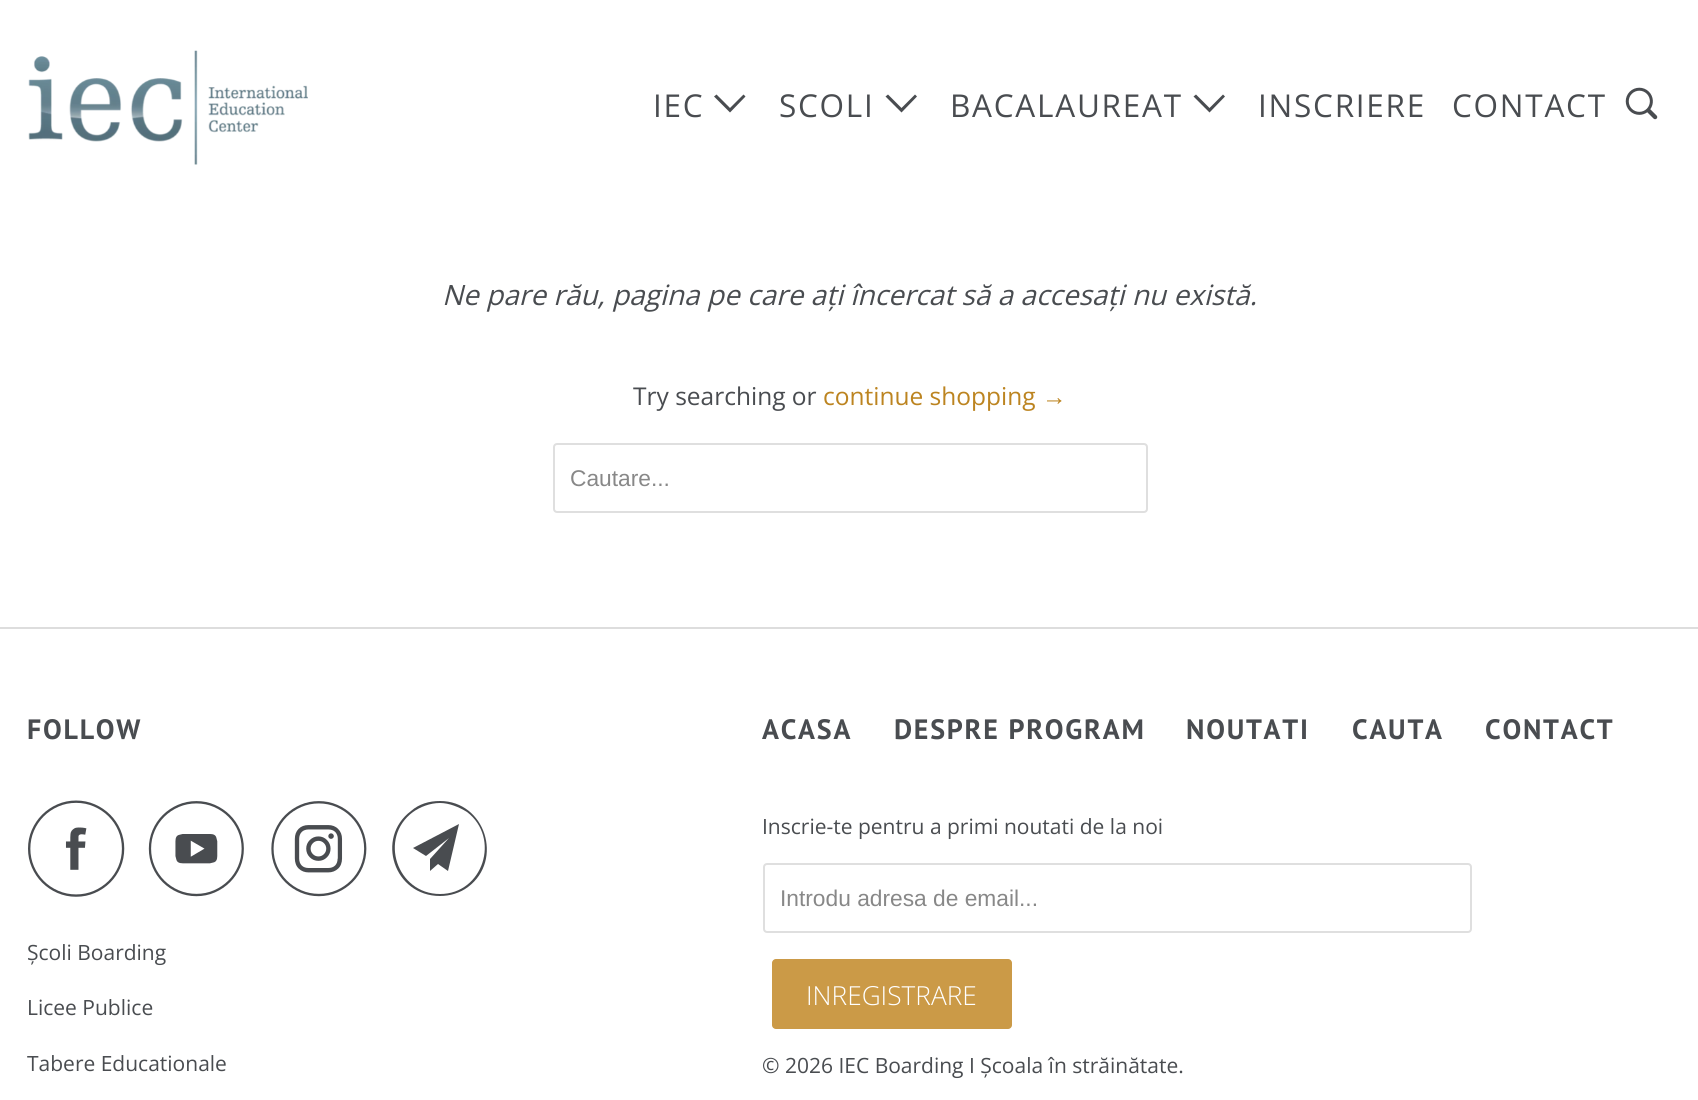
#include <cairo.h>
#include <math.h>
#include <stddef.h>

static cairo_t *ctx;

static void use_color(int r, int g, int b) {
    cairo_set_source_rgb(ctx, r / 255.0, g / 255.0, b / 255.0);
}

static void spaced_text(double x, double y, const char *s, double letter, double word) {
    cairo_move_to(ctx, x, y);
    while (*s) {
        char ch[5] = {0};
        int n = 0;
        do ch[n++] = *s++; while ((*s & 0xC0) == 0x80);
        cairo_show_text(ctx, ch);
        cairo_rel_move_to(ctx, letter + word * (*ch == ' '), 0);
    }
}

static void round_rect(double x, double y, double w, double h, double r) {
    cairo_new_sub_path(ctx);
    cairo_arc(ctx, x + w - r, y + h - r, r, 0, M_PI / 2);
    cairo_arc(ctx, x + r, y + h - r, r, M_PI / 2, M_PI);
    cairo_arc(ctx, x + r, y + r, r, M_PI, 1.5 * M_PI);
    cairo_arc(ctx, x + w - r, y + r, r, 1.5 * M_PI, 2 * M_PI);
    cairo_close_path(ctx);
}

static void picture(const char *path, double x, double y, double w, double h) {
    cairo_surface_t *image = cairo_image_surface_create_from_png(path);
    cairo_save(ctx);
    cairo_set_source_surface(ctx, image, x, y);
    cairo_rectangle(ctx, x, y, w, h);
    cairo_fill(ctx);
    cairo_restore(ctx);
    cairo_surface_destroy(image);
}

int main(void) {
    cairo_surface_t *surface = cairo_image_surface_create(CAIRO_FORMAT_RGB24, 1698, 1100);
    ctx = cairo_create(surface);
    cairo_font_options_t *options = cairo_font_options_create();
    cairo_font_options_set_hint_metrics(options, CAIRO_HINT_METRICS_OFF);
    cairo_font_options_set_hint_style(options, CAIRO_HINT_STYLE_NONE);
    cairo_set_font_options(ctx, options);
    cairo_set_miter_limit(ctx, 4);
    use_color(255, 255, 255);
    cairo_paint(ctx);
    picture("img1.png", 28, 50, 280, 115);
    cairo_select_font_face(ctx, "Open Sans", CAIRO_FONT_SLANT_NORMAL, CAIRO_FONT_WEIGHT_NORMAL);
    cairo_set_font_size(ctx, 31.5);
    use_color(73, 76, 80);
    spaced_text(653, 117, "IEC", 1.75, 0);
    cairo_new_path(ctx);
    cairo_move_to(ctx, 722, 104.5);
    cairo_line_to(ctx, 714, 96.5);
    cairo_line_to(ctx, 716.5, 94.5);
    cairo_line_to(ctx, 730, 108);
    cairo_line_to(ctx, 743.5, 94.5);
    cairo_line_to(ctx, 745.5, 96.5);
    cairo_line_to(ctx, 730, 112.5);
    cairo_close_path(ctx);
    cairo_fill(ctx);
    spaced_text(779, 117, "SCOLI", 1.75, 0);
    cairo_new_path(ctx);
    cairo_move_to(ctx, 893.5, 104.5);
    cairo_line_to(ctx, 885.5, 96.5);
    cairo_line_to(ctx, 888, 94.5);
    cairo_line_to(ctx, 901.5, 108);
    cairo_line_to(ctx, 915, 94.5);
    cairo_line_to(ctx, 917, 96.5);
    cairo_line_to(ctx, 901.5, 112.5);
    cairo_close_path(ctx);
    cairo_fill(ctx);
    spaced_text(950, 117, "BACALAUREAT", 1.75, 0);
    cairo_new_path(ctx);
    cairo_move_to(ctx, 1201.5, 104.5);
    cairo_line_to(ctx, 1193.5, 96.5);
    cairo_line_to(ctx, 1196, 94.5);
    cairo_line_to(ctx, 1209.5, 108);
    cairo_line_to(ctx, 1223, 94.5);
    cairo_line_to(ctx, 1225, 96.5);
    cairo_line_to(ctx, 1209.5, 112.5);
    cairo_close_path(ctx);
    cairo_fill(ctx);
    spaced_text(1258, 117, "INSCRIERE", 1.75, 0);
    spaced_text(1452, 117, "CONTACT", 1.75, 0);
    picture("img2.png", 1625, 87, 33, 33);
    cairo_select_font_face(ctx, "Open Sans", CAIRO_FONT_SLANT_ITALIC, CAIRO_FONT_WEIGHT_NORMAL);
    cairo_set_font_size(ctx, 28);
    cairo_move_to(ctx, 442, 305);
    cairo_show_text(ctx, "Ne pare rău, pagina pe care ați încercat să a accesați nu există.");
    cairo_select_font_face(ctx, "Open Sans", CAIRO_FONT_SLANT_NORMAL, CAIRO_FONT_WEIGHT_NORMAL);
    cairo_set_font_size(ctx, 24.5);
    cairo_move_to(ctx, 633, 405);
    cairo_show_text(ctx, "Try searching or");
    use_color(188, 132, 32);
    cairo_move_to(ctx, 823, 405);
    cairo_show_text(ctx, "continue shopping");
    cairo_select_font_face(ctx, "Liberation Serif", CAIRO_FONT_SLANT_NORMAL, CAIRO_FONT_WEIGHT_NORMAL);
    cairo_move_to(ctx, 1042, 405);
    cairo_show_text(ctx, "→");
    round_rect(554, 444, 593, 68, 3);
    use_color(223, 223, 223);
    cairo_stroke(ctx);
    cairo_save(ctx);
    cairo_rectangle(ctx, 571, 466, 560, 26);
    cairo_clip(ctx);
    cairo_select_font_face(ctx, "Liberation Sans", CAIRO_FONT_SLANT_NORMAL, CAIRO_FONT_WEIGHT_NORMAL);
    cairo_set_font_size(ctx, 22.75);
    use_color(136, 136, 136);
    cairo_move_to(ctx, 570, 486);
    cairo_show_text(ctx, "Cautare...");
    cairo_restore(ctx);
    use_color(221, 221, 221);
    cairo_rectangle(ctx, 0, 627, 1698, 2);
    cairo_fill(ctx);
    cairo_select_font_face(ctx, "PT Sans", CAIRO_FONT_SLANT_NORMAL, CAIRO_FONT_WEIGHT_BOLD);
    cairo_set_font_size(ctx, 28);
    use_color(73, 76, 80);
    spaced_text(27, 739, "FOLLOW", 1.75, 0);
    picture("img3.png", 28, 800, 97, 97);
    picture("img4.png", 148, 801, 96, 96);
    picture("img5.png", 271, 801, 96, 96);
    cairo_new_path(ctx);
    cairo_move_to(ctx, 448, 871);
    cairo_line_to(ctx, 438, 864);
    cairo_line_to(ctx, 430, 871);
    cairo_line_to(ctx, 430, 859);
    cairo_line_to(ctx, 449, 838);
    cairo_line_to(ctx, 426, 856);
    cairo_line_to(ctx, 413, 848);
    cairo_line_to(ctx, 459, 824);
    cairo_close_path(ctx);
    cairo_move_to(ctx, 440, 803);
    cairo_curve_to(ctx, 430, 803, 420, 807, 413, 812);
    cairo_curve_to(ctx, 378, 838, 397, 894, 440, 894);
    cairo_curve_to(ctx, 483, 894, 501, 838, 467, 812);
    cairo_curve_to(ctx, 459, 807, 449, 803, 440, 803);
    cairo_close_path(ctx);
    cairo_move_to(ctx, 440, 896);
    cairo_curve_to(ctx, 394, 896, 375, 838, 411, 811);
    cairo_curve_to(ctx, 419, 804, 429, 801, 440, 801);
    cairo_curve_to(ctx, 485, 801, 504, 860, 468, 887);
    cairo_curve_to(ctx, 460, 893, 450, 896, 440, 896);
    cairo_close_path(ctx);
    cairo_fill(ctx);
    cairo_select_font_face(ctx, "Open Sans", CAIRO_FONT_SLANT_NORMAL, CAIRO_FONT_WEIGHT_NORMAL);
    cairo_set_font_size(ctx, 21);
    cairo_move_to(ctx, 27, 960);
    cairo_show_text(ctx, "Școli Boarding");
    cairo_move_to(ctx, 27, 1015);
    cairo_show_text(ctx, "Licee Publice");
    cairo_move_to(ctx, 27, 1071);
    cairo_show_text(ctx, "Tabere Educationale");
    cairo_select_font_face(ctx, "PT Sans", CAIRO_FONT_SLANT_NORMAL, CAIRO_FONT_WEIGHT_BOLD);
    cairo_set_font_size(ctx, 28);
    spaced_text(762, 739, "ACASA", 1.75, 0);
    spaced_text(894, 739, "DESPRE PROGRAM", 1.75, 0);
    spaced_text(1186, 739, "NOUTATI", 1.75, 0);
    spaced_text(1352, 739, "CAUTA", 1.75, 0);
    spaced_text(1485, 739, "CONTACT", 1.75, 0);
    cairo_select_font_face(ctx, "Open Sans", CAIRO_FONT_SLANT_NORMAL, CAIRO_FONT_WEIGHT_NORMAL);
    cairo_set_font_size(ctx, 21);
    cairo_move_to(ctx, 762, 834);
    cairo_show_text(ctx, "Inscrie-te pentru a primi noutati de la noi");
    round_rect(764, 864, 707, 68, 3);
    use_color(223, 223, 223);
    cairo_stroke(ctx);
    cairo_select_font_face(ctx, "Liberation Sans", CAIRO_FONT_SLANT_NORMAL, CAIRO_FONT_WEIGHT_NORMAL);
    cairo_set_font_size(ctx, 22.75);
    use_color(136, 136, 136);
    cairo_move_to(ctx, 780, 906);
    cairo_show_text(ctx, "Introdu adresa de email...");
    use_color(203, 154, 71);
    round_rect(772, 959, 240, 70, 4);
    cairo_fill(ctx);
    cairo_select_font_face(ctx, "Open Sans Light", CAIRO_FONT_SLANT_NORMAL, CAIRO_FONT_WEIGHT_NORMAL);
    cairo_set_font_size(ctx, 26.25);
    use_color(255, 255, 255);
    cairo_move_to(ctx, 806, 1005);
    cairo_show_text(ctx, "INREGISTRARE");
    cairo_select_font_face(ctx, "Open Sans", CAIRO_FONT_SLANT_NORMAL, CAIRO_FONT_WEIGHT_NORMAL);
    cairo_set_font_size(ctx, 21);
    use_color(73, 76, 80);
    cairo_move_to(ctx, 762, 1073);
    cairo_show_text(ctx, "© 2026 IEC Boarding I Școala în străinătate.");
    cairo_surface_write_to_png(surface, "result.png");
    cairo_font_options_destroy(options);
    cairo_destroy(ctx);
    cairo_surface_destroy(surface);
    return 0;
}
